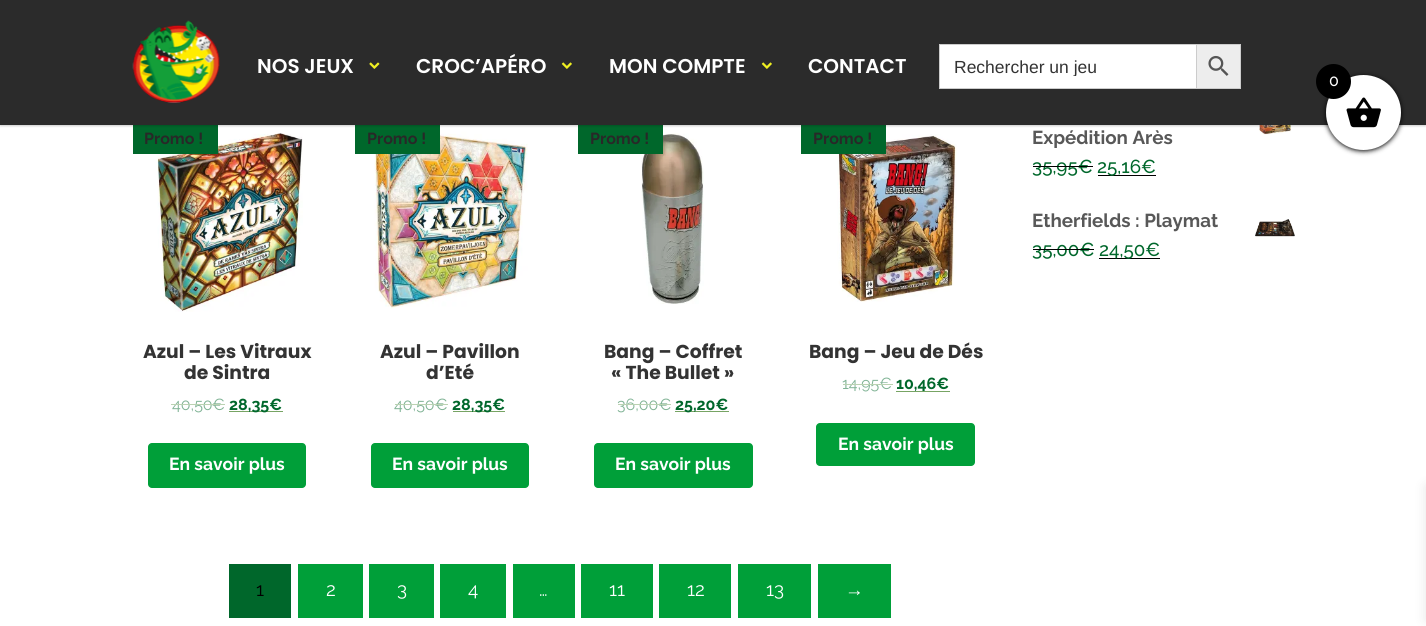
#include <cairo.h>
#include <math.h>
#include <stddef.h>

static cairo_t *ctx;

static void use_color(int r, int g, int b) {
    cairo_set_source_rgb(ctx, r / 255.0, g / 255.0, b / 255.0);
}

static void round_rect(double x, double y, double w, double h, double r) {
    cairo_new_sub_path(ctx);
    cairo_arc(ctx, x + w - r, y + h - r, r, 0, M_PI / 2);
    cairo_arc(ctx, x + r, y + h - r, r, M_PI / 2, M_PI);
    cairo_arc(ctx, x + r, y + r, r, M_PI, 1.5 * M_PI);
    cairo_arc(ctx, x + w - r, y + r, r, 1.5 * M_PI, 2 * M_PI);
    cairo_close_path(ctx);
}

static void shadow(double x, double y, double w, double h, double r, double blur, double alpha) {
    cairo_push_group_with_content(ctx, CAIRO_CONTENT_ALPHA);
    cairo_set_operator(ctx, CAIRO_OPERATOR_SOURCE);
    for (int i = 15; i >= -15 && fmin(w, h) + blur * i / 3 > 0; i -= 2) {
        double e = blur * i / 6;
        cairo_set_source_rgba(ctx, 0, 0, 0, alpha * erfc((i - 1) / 8.5) / 2);
        round_rect(x - e, y - e, w + 2 * e, h + 2 * e, fmax(0, fmin(r + e + blur * .6, fmin(w, h) / 2 + e)));
        cairo_fill(ctx);
    }
    cairo_pattern_t *soft = cairo_pop_group(ctx);
    cairo_mask(ctx, soft);
    cairo_pattern_destroy(soft);
}

static void picture(const char *path, double x, double y, double w, double h) {
    cairo_surface_t *image = cairo_image_surface_create_from_png(path);
    cairo_save(ctx);
    cairo_set_source_surface(ctx, image, x, y);
    cairo_rectangle(ctx, x, y, w, h);
    cairo_fill(ctx);
    cairo_restore(ctx);
    cairo_surface_destroy(image);
}

int main(void) {
    cairo_surface_t *surface = cairo_image_surface_create(CAIRO_FORMAT_RGB24, 1426, 626);
    ctx = cairo_create(surface);
    cairo_font_options_t *options = cairo_font_options_create();
    cairo_font_options_set_hint_metrics(options, CAIRO_HINT_METRICS_OFF);
    cairo_font_options_set_hint_style(options, CAIRO_HINT_STYLE_NONE);
    cairo_set_font_options(ctx, options);
    cairo_set_miter_limit(ctx, 4);
    use_color(255, 255, 255);
    cairo_paint(ctx);
    picture("img6.png", 157, 133, 146, 179);
    use_color(0, 103, 43);
    cairo_rectangle(ctx, 133, 125, 85, 29);
    cairo_fill(ctx);
    picture("img7.png", 374, 128, 154, 181);
    cairo_rectangle(ctx, 355, 125, 85, 29);
    cairo_fill(ctx);
    picture("img8.png", 641, 133, 63, 171);
    cairo_rectangle(ctx, 578, 125, 85, 29);
    cairo_fill(ctx);
    picture("img9.png", 837, 134, 120, 168);
    cairo_rectangle(ctx, 801, 125, 85, 29);
    cairo_fill(ctx);
    picture("img10.png", 1259, 125, 32, 10);
    use_color(0, 0, 0);
    shadow(0, 1, 1426, 125, 0, 1, 0.2);
    use_color(43, 43, 43);
    cairo_rectangle(ctx, 0, 0, 1426, 125);
    cairo_fill(ctx);
    picture("img1.png", 132, 20, 88, 83);
    cairo_select_font_face(ctx, "Poppins SemiBold", CAIRO_FONT_SLANT_NORMAL, CAIRO_FONT_WEIGHT_NORMAL);
    cairo_set_font_size(ctx, 20);
    use_color(255, 255, 255);
    cairo_move_to(ctx, 257, 73);
    cairo_show_text(ctx, "NOS JEUX");
    picture("img2.png", 369, 62, 11, 7);
    cairo_move_to(ctx, 416, 73);
    cairo_show_text(ctx, "CROC’APÉRO");
    picture("img3.png", 561, 62, 11, 7);
    cairo_move_to(ctx, 609, 73);
    cairo_show_text(ctx, "MON COMPTE");
    picture("img3.png", 761, 62, 11, 7);
    cairo_move_to(ctx, 808, 73);
    cairo_show_text(ctx, "CONTACT");
    cairo_rectangle(ctx, 940, 45, 256, 43);
    cairo_fill(ctx);
    use_color(204, 204, 204);
    cairo_rectangle(ctx, 939, 44, 257, 1);
    cairo_fill(ctx);
    cairo_rectangle(ctx, 939, 88, 257, 1);
    cairo_fill(ctx);
    cairo_rectangle(ctx, 939, 44, 1, 45);
    cairo_fill(ctx);
    cairo_save(ctx);
    cairo_rectangle(ctx, 955, 56, 226, 20);
    cairo_clip(ctx);
    cairo_select_font_face(ctx, "Liberation Sans", CAIRO_FONT_SLANT_NORMAL, CAIRO_FONT_WEIGHT_NORMAL);
    cairo_set_font_size(ctx, 17.5);
    use_color(51, 51, 51);
    cairo_move_to(ctx, 954, 73);
    cairo_show_text(ctx, "Rechercher un jeu");
    cairo_restore(ctx);
    use_color(237, 237, 237);
    cairo_rectangle(ctx, 1196.5, 44.5, 44, 44);
    cairo_fill_preserve(ctx);
    use_color(204, 204, 204);
    cairo_set_line_width(ctx, 1);
    cairo_stroke(ctx);
    picture("img4.png", 1208, 55, 21, 21);
    use_color(0, 0, 0);
    shadow(1326, 76, 75, 75, 37.5, 2.5, 1);
    use_color(255, 255, 255);
    cairo_arc(ctx, 1363.5, 112.5, 37.5, 0, 2 * M_PI);
    cairo_fill(ctx);
    picture("img5.png", 1346, 97, 35, 31);
    use_color(0, 0, 0);
    cairo_arc(ctx, 1333.5, 81.5, 17.5, 0, 2 * M_PI);
    cairo_fill(ctx);
    cairo_select_font_face(ctx, "Raleway Medium", CAIRO_FONT_SLANT_NORMAL, CAIRO_FONT_WEIGHT_NORMAL);
    cairo_set_font_size(ctx, 16);
    use_color(255, 255, 255);
    cairo_move_to(ctx, 1329, 86);
    cairo_show_text(ctx, "0");
    use_color(0, 0, 0);
    shadow(1426, 486, 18, 134, 0, 6, 0.1);
    cairo_select_font_face(ctx, "Raleway", CAIRO_FONT_SLANT_NORMAL, CAIRO_FONT_WEIGHT_BOLD);
    use_color(40, 40, 40);
    cairo_move_to(ctx, 144, 144);
    cairo_show_text(ctx, "Promo !");
    cairo_select_font_face(ctx, "Poppins", CAIRO_FONT_SLANT_NORMAL, CAIRO_FONT_WEIGHT_BOLD);
    cairo_set_font_size(ctx, 18.75);
    use_color(51, 51, 51);
    cairo_move_to(ctx, 143, 358);
    cairo_show_text(ctx, "Azul – Les Vitraux");
    cairo_move_to(ctx, 184, 379);
    cairo_show_text(ctx, "de Sintra");
    cairo_select_font_face(ctx, "Raleway", CAIRO_FONT_SLANT_NORMAL, CAIRO_FONT_WEIGHT_NORMAL);
    cairo_set_font_size(ctx, 16);
    use_color(128, 179, 149);
    cairo_move_to(ctx, 172, 410);
    cairo_show_text(ctx, "40,50");
    use_color(187, 210, 178);
    cairo_rectangle(ctx, 171, 404, 42, 1);
    cairo_fill(ctx);
    use_color(128, 179, 149);
    cairo_move_to(ctx, 212, 410);
    cairo_show_text(ctx, "€");
    use_color(187, 210, 178);
    cairo_rectangle(ctx, 213, 404, 12, 1);
    cairo_fill(ctx);
    use_color(119, 164, 100);
    cairo_rectangle(ctx, 229, 411, 54, 1);
    cairo_fill(ctx);
    cairo_select_font_face(ctx, "Raleway", CAIRO_FONT_SLANT_NORMAL, CAIRO_FONT_WEIGHT_BOLD);
    use_color(0, 103, 43);
    cairo_move_to(ctx, 229, 410);
    cairo_show_text(ctx, "28,35€");
    use_color(0, 159, 57);
    round_rect(148, 443, 158, 45, 4);
    cairo_fill(ctx);
    cairo_set_font_size(ctx, 17.5);
    use_color(255, 255, 255);
    cairo_move_to(ctx, 169, 470);
    cairo_show_text(ctx, "En savoir plus");
    cairo_set_font_size(ctx, 16);
    use_color(40, 40, 40);
    cairo_move_to(ctx, 367, 144);
    cairo_show_text(ctx, "Promo !");
    cairo_select_font_face(ctx, "Poppins", CAIRO_FONT_SLANT_NORMAL, CAIRO_FONT_WEIGHT_BOLD);
    cairo_set_font_size(ctx, 18.75);
    use_color(51, 51, 51);
    cairo_move_to(ctx, 380, 358);
    cairo_show_text(ctx, "Azul – Pavillon");
    cairo_move_to(ctx, 426, 379);
    cairo_show_text(ctx, "d’Eté");
    cairo_select_font_face(ctx, "Raleway", CAIRO_FONT_SLANT_NORMAL, CAIRO_FONT_WEIGHT_NORMAL);
    cairo_set_font_size(ctx, 16);
    use_color(128, 179, 149);
    cairo_move_to(ctx, 394, 410);
    cairo_show_text(ctx, "40,50€");
    use_color(187, 210, 178);
    cairo_rectangle(ctx, 395, 404, 53, 1);
    cairo_fill(ctx);
    use_color(119, 164, 100);
    cairo_rectangle(ctx, 453, 411, 52, 1);
    cairo_fill(ctx);
    cairo_select_font_face(ctx, "Raleway", CAIRO_FONT_SLANT_NORMAL, CAIRO_FONT_WEIGHT_BOLD);
    use_color(0, 103, 43);
    cairo_move_to(ctx, 452, 410);
    cairo_show_text(ctx, "28,35€");
    use_color(0, 159, 57);
    round_rect(371, 443, 158, 45, 4);
    cairo_fill(ctx);
    cairo_set_font_size(ctx, 17.5);
    use_color(255, 255, 255);
    cairo_move_to(ctx, 392, 470);
    cairo_show_text(ctx, "En savoir plus");
    cairo_set_font_size(ctx, 16);
    use_color(40, 40, 40);
    cairo_move_to(ctx, 590, 144);
    cairo_show_text(ctx, "Promo !");
    cairo_select_font_face(ctx, "Poppins", CAIRO_FONT_SLANT_NORMAL, CAIRO_FONT_WEIGHT_BOLD);
    cairo_set_font_size(ctx, 18.75);
    use_color(51, 51, 51);
    cairo_move_to(ctx, 604, 358);
    cairo_show_text(ctx, "Bang – Coffret");
    cairo_move_to(ctx, 611, 379);
    cairo_show_text(ctx, "« The Bullet »");
    cairo_select_font_face(ctx, "Raleway", CAIRO_FONT_SLANT_NORMAL, CAIRO_FONT_WEIGHT_NORMAL);
    cairo_set_font_size(ctx, 16);
    use_color(128, 179, 149);
    cairo_move_to(ctx, 617, 410);
    cairo_show_text(ctx, "36,00€");
    use_color(187, 210, 178);
    cairo_rectangle(ctx, 618, 404, 53, 1);
    cairo_fill(ctx);
    use_color(119, 164, 100);
    cairo_rectangle(ctx, 675, 411, 54, 1);
    cairo_fill(ctx);
    cairo_select_font_face(ctx, "Raleway", CAIRO_FONT_SLANT_NORMAL, CAIRO_FONT_WEIGHT_BOLD);
    use_color(0, 103, 43);
    cairo_move_to(ctx, 675, 410);
    cairo_show_text(ctx, "25,20€");
    use_color(0, 159, 57);
    round_rect(594, 443, 159, 45, 4);
    cairo_fill(ctx);
    cairo_set_font_size(ctx, 17.5);
    use_color(255, 255, 255);
    cairo_move_to(ctx, 615, 470);
    cairo_show_text(ctx, "En savoir plus");
    cairo_set_font_size(ctx, 16);
    use_color(40, 40, 40);
    cairo_move_to(ctx, 813, 144);
    cairo_show_text(ctx, "Promo !");
    cairo_select_font_face(ctx, "Poppins", CAIRO_FONT_SLANT_NORMAL, CAIRO_FONT_WEIGHT_BOLD);
    cairo_set_font_size(ctx, 18.75);
    use_color(51, 51, 51);
    cairo_move_to(ctx, 809, 358);
    cairo_show_text(ctx, "Bang – Jeu de Dés");
    cairo_select_font_face(ctx, "Raleway", CAIRO_FONT_SLANT_NORMAL, CAIRO_FONT_WEIGHT_NORMAL);
    cairo_set_font_size(ctx, 16);
    use_color(128, 179, 149);
    cairo_move_to(ctx, 842, 389);
    cairo_show_text(ctx, "14,95");
    use_color(187, 210, 178);
    cairo_rectangle(ctx, 843, 384, 37, 1);
    cairo_fill(ctx);
    use_color(128, 179, 149);
    cairo_move_to(ctx, 879, 389);
    cairo_show_text(ctx, "€");
    use_color(187, 210, 178);
    cairo_rectangle(ctx, 880, 384, 13, 1);
    cairo_fill(ctx);
    use_color(119, 164, 100);
    cairo_rectangle(ctx, 896, 391, 40, 1);
    cairo_fill(ctx);
    cairo_select_font_face(ctx, "Raleway", CAIRO_FONT_SLANT_NORMAL, CAIRO_FONT_WEIGHT_BOLD);
    use_color(0, 103, 43);
    cairo_move_to(ctx, 896, 389);
    cairo_show_text(ctx, "10,46€");
    use_color(119, 164, 100);
    cairo_rectangle(ctx, 936, 391, 14, 1);
    cairo_fill(ctx);
    use_color(0, 159, 57);
    round_rect(816, 423, 159, 43, 4);
    cairo_fill(ctx);
    cairo_set_font_size(ctx, 17.5);
    use_color(255, 255, 255);
    cairo_move_to(ctx, 838, 450);
    cairo_show_text(ctx, "En savoir plus");
    use_color(0, 103, 43);
    cairo_rectangle(ctx, 229, 564, 62, 54);
    cairo_fill(ctx);
    cairo_select_font_face(ctx, "Raleway", CAIRO_FONT_SLANT_NORMAL, CAIRO_FONT_WEIGHT_NORMAL);
    cairo_set_font_size(ctx, 18.75);
    use_color(0, 0, 0);
    cairo_move_to(ctx, 256, 596);
    cairo_show_text(ctx, "1");
    use_color(0, 159, 57);
    cairo_rectangle(ctx, 298, 564, 65, 54);
    cairo_fill(ctx);
    use_color(255, 255, 255);
    cairo_move_to(ctx, 326, 596);
    cairo_show_text(ctx, "2");
    use_color(0, 159, 57);
    cairo_rectangle(ctx, 369, 564, 65, 54);
    cairo_fill(ctx);
    use_color(255, 255, 255);
    cairo_move_to(ctx, 397, 596);
    cairo_show_text(ctx, "3");
    use_color(0, 159, 57);
    cairo_rectangle(ctx, 440, 564, 66, 54);
    cairo_fill(ctx);
    use_color(255, 255, 255);
    cairo_move_to(ctx, 468, 596);
    cairo_show_text(ctx, "4");
    use_color(0, 159, 57);
    cairo_rectangle(ctx, 513, 564, 62, 54);
    cairo_fill(ctx);
    use_color(255, 255, 255);
    cairo_move_to(ctx, 539, 596);
    cairo_show_text(ctx, "…");
    use_color(0, 159, 57);
    cairo_rectangle(ctx, 581, 564, 72, 54);
    cairo_fill(ctx);
    use_color(255, 255, 255);
    cairo_move_to(ctx, 609, 596);
    cairo_show_text(ctx, "11");
    use_color(0, 159, 57);
    cairo_rectangle(ctx, 659, 564, 72, 54);
    cairo_fill(ctx);
    use_color(255, 255, 255);
    cairo_move_to(ctx, 687, 596);
    cairo_show_text(ctx, "12");
    use_color(0, 159, 57);
    cairo_rectangle(ctx, 738, 564, 73, 54);
    cairo_fill(ctx);
    use_color(255, 255, 255);
    cairo_move_to(ctx, 766, 596);
    cairo_show_text(ctx, "13");
    use_color(0, 159, 57);
    cairo_rectangle(ctx, 818, 564, 73, 54);
    cairo_fill(ctx);
    cairo_select_font_face(ctx, "Liberation Sans", CAIRO_FONT_SLANT_NORMAL, CAIRO_FONT_WEIGHT_NORMAL);
    use_color(255, 255, 255);
    cairo_move_to(ctx, 845, 596);
    cairo_show_text(ctx, "→");
    cairo_select_font_face(ctx, "Raleway", CAIRO_FONT_SLANT_NORMAL, CAIRO_FONT_WEIGHT_BOLD);
    use_color(88, 88, 88);
    cairo_move_to(ctx, 1032, 144);
    cairo_show_text(ctx, "Expédition Arès");
    cairo_select_font_face(ctx, "Raleway Medium", CAIRO_FONT_SLANT_NORMAL, CAIRO_FONT_WEIGHT_NORMAL);
    use_color(0, 103, 43);
    cairo_move_to(ctx, 1032, 173);
    cairo_show_text(ctx, "35,95€");
    use_color(0, 0, 0);
    cairo_rectangle(ctx, 1033, 166, 60, 1);
    cairo_fill(ctx);
    cairo_rectangle(ctx, 1098, 175, 58, 1);
    cairo_fill(ctx);
    use_color(0, 103, 43);
    cairo_move_to(ctx, 1097, 173);
    cairo_show_text(ctx, "25,16€");
    cairo_select_font_face(ctx, "Raleway", CAIRO_FONT_SLANT_NORMAL, CAIRO_FONT_WEIGHT_BOLD);
    use_color(88, 88, 88);
    cairo_move_to(ctx, 1032, 227);
    cairo_show_text(ctx, "Etherfields : Playmat");
    picture("img11.png", 1255, 219, 40, 18);
    cairo_select_font_face(ctx, "Raleway Medium", CAIRO_FONT_SLANT_NORMAL, CAIRO_FONT_WEIGHT_NORMAL);
    use_color(0, 103, 43);
    cairo_move_to(ctx, 1032, 256);
    cairo_show_text(ctx, "35,00€");
    use_color(0, 0, 0);
    cairo_rectangle(ctx, 1033, 249, 61, 1);
    cairo_fill(ctx);
    cairo_rectangle(ctx, 1099, 258, 61, 1);
    cairo_fill(ctx);
    use_color(0, 103, 43);
    cairo_move_to(ctx, 1099, 256);
    cairo_show_text(ctx, "24,50€");
    cairo_surface_write_to_png(surface, "result.png");
    cairo_font_options_destroy(options);
    cairo_destroy(ctx);
    cairo_surface_destroy(surface);
    return 0;
}
